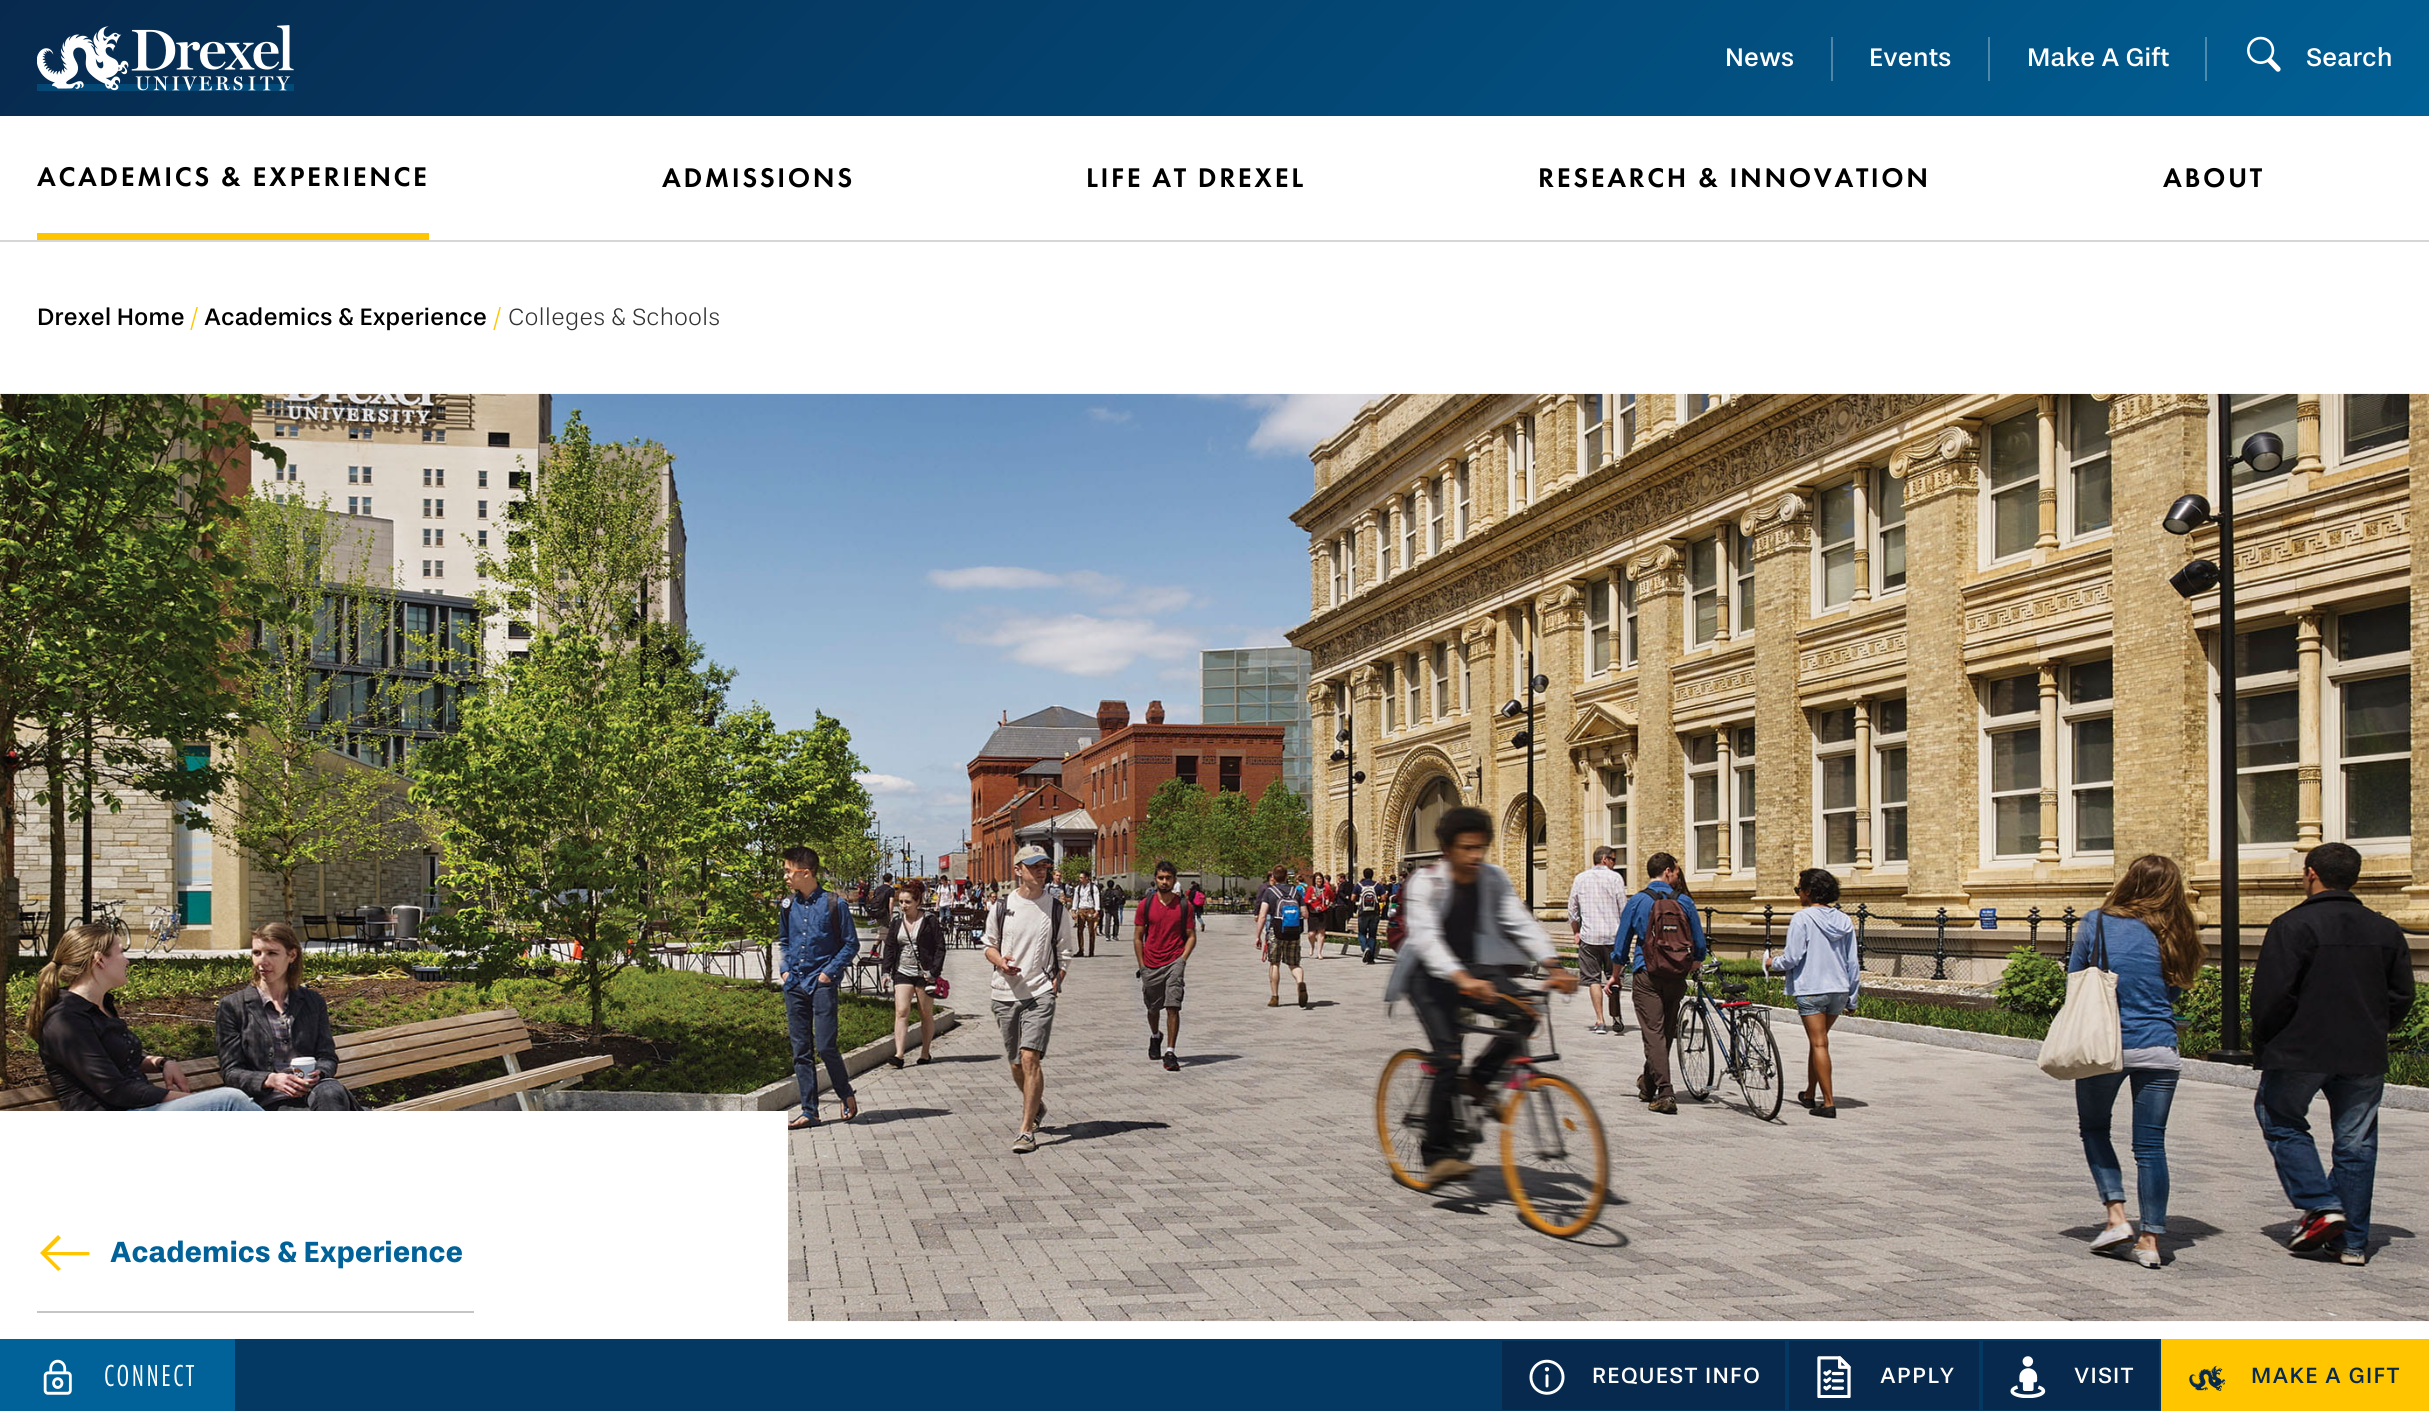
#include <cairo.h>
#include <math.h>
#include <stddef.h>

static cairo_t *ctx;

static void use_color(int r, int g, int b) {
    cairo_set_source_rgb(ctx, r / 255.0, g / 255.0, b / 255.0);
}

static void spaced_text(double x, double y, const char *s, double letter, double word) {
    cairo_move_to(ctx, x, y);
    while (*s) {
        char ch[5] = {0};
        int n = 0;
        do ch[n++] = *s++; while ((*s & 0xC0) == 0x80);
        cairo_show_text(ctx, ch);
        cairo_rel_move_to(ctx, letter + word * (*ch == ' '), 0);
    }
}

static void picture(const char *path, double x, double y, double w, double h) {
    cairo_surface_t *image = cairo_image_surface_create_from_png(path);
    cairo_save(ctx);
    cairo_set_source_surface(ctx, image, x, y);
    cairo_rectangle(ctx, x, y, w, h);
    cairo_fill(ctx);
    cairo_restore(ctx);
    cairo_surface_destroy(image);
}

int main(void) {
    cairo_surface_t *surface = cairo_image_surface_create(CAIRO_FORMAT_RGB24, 2429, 1411);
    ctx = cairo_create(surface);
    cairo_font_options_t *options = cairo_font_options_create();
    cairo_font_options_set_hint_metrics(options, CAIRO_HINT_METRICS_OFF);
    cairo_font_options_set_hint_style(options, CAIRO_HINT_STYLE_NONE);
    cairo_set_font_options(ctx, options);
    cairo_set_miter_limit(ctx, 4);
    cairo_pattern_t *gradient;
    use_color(255, 255, 255);
    cairo_paint(ctx);
    gradient = cairo_pattern_create_linear(547, -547, 1882, 788);
    cairo_pattern_add_color_stop_rgba(gradient, 0, 0.027, 0.161, 0.302, 1);
    cairo_pattern_add_color_stop_rgba(gradient, 1, 0, 0.384, 0.596, 1);
    cairo_set_source(ctx, gradient);
    cairo_pattern_destroy(gradient);
    cairo_rectangle(ctx, 0, 0, 2429, 116);
    cairo_fill(ctx);
    gradient = cairo_pattern_create_linear(547, -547, 1882, 788);
    cairo_pattern_add_color_stop_rgba(gradient, 0, 0.016, 0.275, 0.451, 1);
    cairo_pattern_add_color_stop_rgba(gradient, 1, 0, 0.384, 0.596, 1);
    cairo_set_source(ctx, gradient);
    cairo_pattern_destroy(gradient);
    cairo_rectangle(ctx, 37, 84, 257, 7);
    cairo_fill(ctx);
    picture("img1.png", 37, 25, 257, 66);
    cairo_select_font_face(ctx, "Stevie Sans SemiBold", CAIRO_FONT_SLANT_NORMAL, CAIRO_FONT_WEIGHT_NORMAL);
    cairo_set_font_size(ctx, 26.25);
    use_color(255, 255, 255);
    cairo_move_to(ctx, 1725, 66);
    cairo_show_text(ctx, "News");
    use_color(78, 133, 168);
    cairo_rectangle(ctx, 1831, 37, 2, 44);
    cairo_fill(ctx);
    use_color(255, 255, 255);
    cairo_move_to(ctx, 1869, 66);
    cairo_show_text(ctx, "Events");
    use_color(78, 136, 171);
    cairo_rectangle(ctx, 1988, 37, 2, 44);
    cairo_fill(ctx);
    use_color(255, 255, 255);
    cairo_move_to(ctx, 2027, 66);
    cairo_show_text(ctx, "Make A Gift");
    use_color(77, 139, 175);
    cairo_rectangle(ctx, 2205, 37, 2, 44);
    cairo_fill(ctx);
    picture("img2.png", 2247, 36, 34, 36);
    use_color(255, 255, 255);
    cairo_move_to(ctx, 2306, 66);
    cairo_show_text(ctx, "Search");
    use_color(214, 214, 214);
    cairo_rectangle(ctx, 0, 240, 2429, 2);
    cairo_fill(ctx);
    cairo_select_font_face(ctx, "Futura PT Medium", CAIRO_FONT_SLANT_NORMAL, CAIRO_FONT_WEIGHT_NORMAL);
    cairo_set_font_size(ctx, 28);
    use_color(0, 0, 0);
    spaced_text(37, 186, "ACADEMICS & EXPERIENCE", 2.6, 0);
    use_color(255, 198, 0);
    cairo_rectangle(ctx, 37, 233, 392, 7);
    cairo_fill(ctx);
    use_color(0, 0, 0);
    spaced_text(662, 187, "ADMISSIONS", 2.6, 0);
    spaced_text(1086, 187, "LIFE AT DREXEL", 2.6, 0);
    spaced_text(1538, 187, "RESEARCH & INNOVATION", 2.6, 0);
    spaced_text(2163, 187, "ABOUT", 2.6, 0);
    cairo_select_font_face(ctx, "Stevie Sans SemiBold", CAIRO_FONT_SLANT_NORMAL, CAIRO_FONT_WEIGHT_NORMAL);
    cairo_set_font_size(ctx, 24.5);
    cairo_move_to(ctx, 37, 325);
    cairo_show_text(ctx, "Drexel Home");
    cairo_select_font_face(ctx, "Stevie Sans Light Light", CAIRO_FONT_SLANT_NORMAL, CAIRO_FONT_WEIGHT_NORMAL);
    use_color(255, 198, 0);
    cairo_move_to(ctx, 190, 325);
    cairo_show_text(ctx, "/");
    cairo_select_font_face(ctx, "Stevie Sans SemiBold", CAIRO_FONT_SLANT_NORMAL, CAIRO_FONT_WEIGHT_NORMAL);
    use_color(0, 0, 0);
    cairo_move_to(ctx, 204, 325);
    cairo_show_text(ctx, "Academics & Experience");
    cairo_select_font_face(ctx, "Stevie Sans Light Light", CAIRO_FONT_SLANT_NORMAL, CAIRO_FONT_WEIGHT_NORMAL);
    use_color(255, 198, 0);
    cairo_move_to(ctx, 493, 325);
    cairo_show_text(ctx, "/");
    use_color(51, 51, 51);
    cairo_move_to(ctx, 508, 325);
    cairo_show_text(ctx, "Colleges & Schools");
    picture("img3.png", 0, 393, 2429, 929);
    use_color(255, 255, 255);
    cairo_rectangle(ctx, 0, 1111, 788, 211);
    cairo_fill(ctx);
    use_color(197, 197, 197);
    cairo_rectangle(ctx, 37, 1311, 437, 2);
    cairo_fill(ctx);
    use_color(255, 198, 0);
    cairo_set_fill_rule(ctx, CAIRO_FILL_RULE_EVEN_ODD);
    cairo_new_path(ctx);
    cairo_move_to(ctx, 47, 1252);
    cairo_line_to(ctx, 88, 1252);
    cairo_curve_to(ctx, 90, 1252, 90, 1254, 89, 1255);
    cairo_curve_to(ctx, 88, 1256, 51, 1255, 47, 1255);
    cairo_line_to(ctx, 61, 1269);
    cairo_line_to(ctx, 58, 1271);
    cairo_line_to(ctx, 40, 1253);
    cairo_line_to(ctx, 58, 1235);
    cairo_line_to(ctx, 61, 1238);
    cairo_close_path(ctx);
    cairo_fill(ctx);
    cairo_select_font_face(ctx, "Stevie Sans", CAIRO_FONT_SLANT_NORMAL, CAIRO_FONT_WEIGHT_BOLD);
    cairo_set_font_size(ctx, 29.75);
    use_color(0, 98, 152);
    cairo_move_to(ctx, 110, 1262);
    cairo_show_text(ctx, "Academics & Experience");
    use_color(4, 57, 99);
    cairo_rectangle(ctx, 235, 1339, 1265, 72);
    cairo_fill(ctx);
    use_color(0, 98, 152);
    cairo_rectangle(ctx, 0, 1339, 235, 72);
    cairo_fill(ctx);
    picture("img4.png", 43, 1359, 29, 36);
    cairo_select_font_face(ctx, "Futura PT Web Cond", CAIRO_FONT_SLANT_NORMAL, CAIRO_FONT_WEIGHT_NORMAL);
    cairo_set_font_size(ctx, 31.5);
    use_color(255, 255, 255);
    spaced_text(104, 1386, "CONNECT", 2.5, 0);
    use_color(7, 41, 77);
    cairo_rectangle(ctx, 1502, 1341, 657, 69);
    cairo_fill(ctx);
    cairo_rectangle(ctx, 1501, 1340, 285, 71);
    use_color(4, 57, 99);
    cairo_stroke(ctx);
    picture("img5.png", 1529, 1359, 36, 36);
    cairo_select_font_face(ctx, "Stevie Sans SemiBold", CAIRO_FONT_SLANT_NORMAL, CAIRO_FONT_WEIGHT_NORMAL);
    cairo_set_font_size(ctx, 22.75);
    use_color(255, 255, 255);
    spaced_text(1592, 1383, "REQUEST INFO", 1.25, 0);
    cairo_rectangle(ctx, 1788, 1340, 192, 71);
    use_color(4, 57, 99);
    cairo_stroke(ctx);
    picture("img6.png", 1817, 1356, 34, 42);
    use_color(255, 255, 255);
    spaced_text(1880, 1383, "APPLY", 1.25, 0);
    cairo_rectangle(ctx, 1982, 1340, 178, 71);
    use_color(4, 57, 99);
    cairo_stroke(ctx);
    picture("img7.png", 2010, 1356, 36, 42);
    use_color(255, 255, 255);
    spaced_text(2074, 1383, "VISIT", 1.25, 0);
    use_color(255, 198, 0);
    cairo_rectangle(ctx, 2161, 1339, 268, 72);
    cairo_fill(ctx);
    picture("img8.png", 2189, 1365, 37, 26);
    use_color(7, 41, 77);
    spaced_text(2251, 1383, "MAKE A GIFT", 1.25, 0);
    cairo_surface_write_to_png(surface, "result.png");
    cairo_font_options_destroy(options);
    cairo_destroy(ctx);
    cairo_surface_destroy(surface);
    return 0;
}
